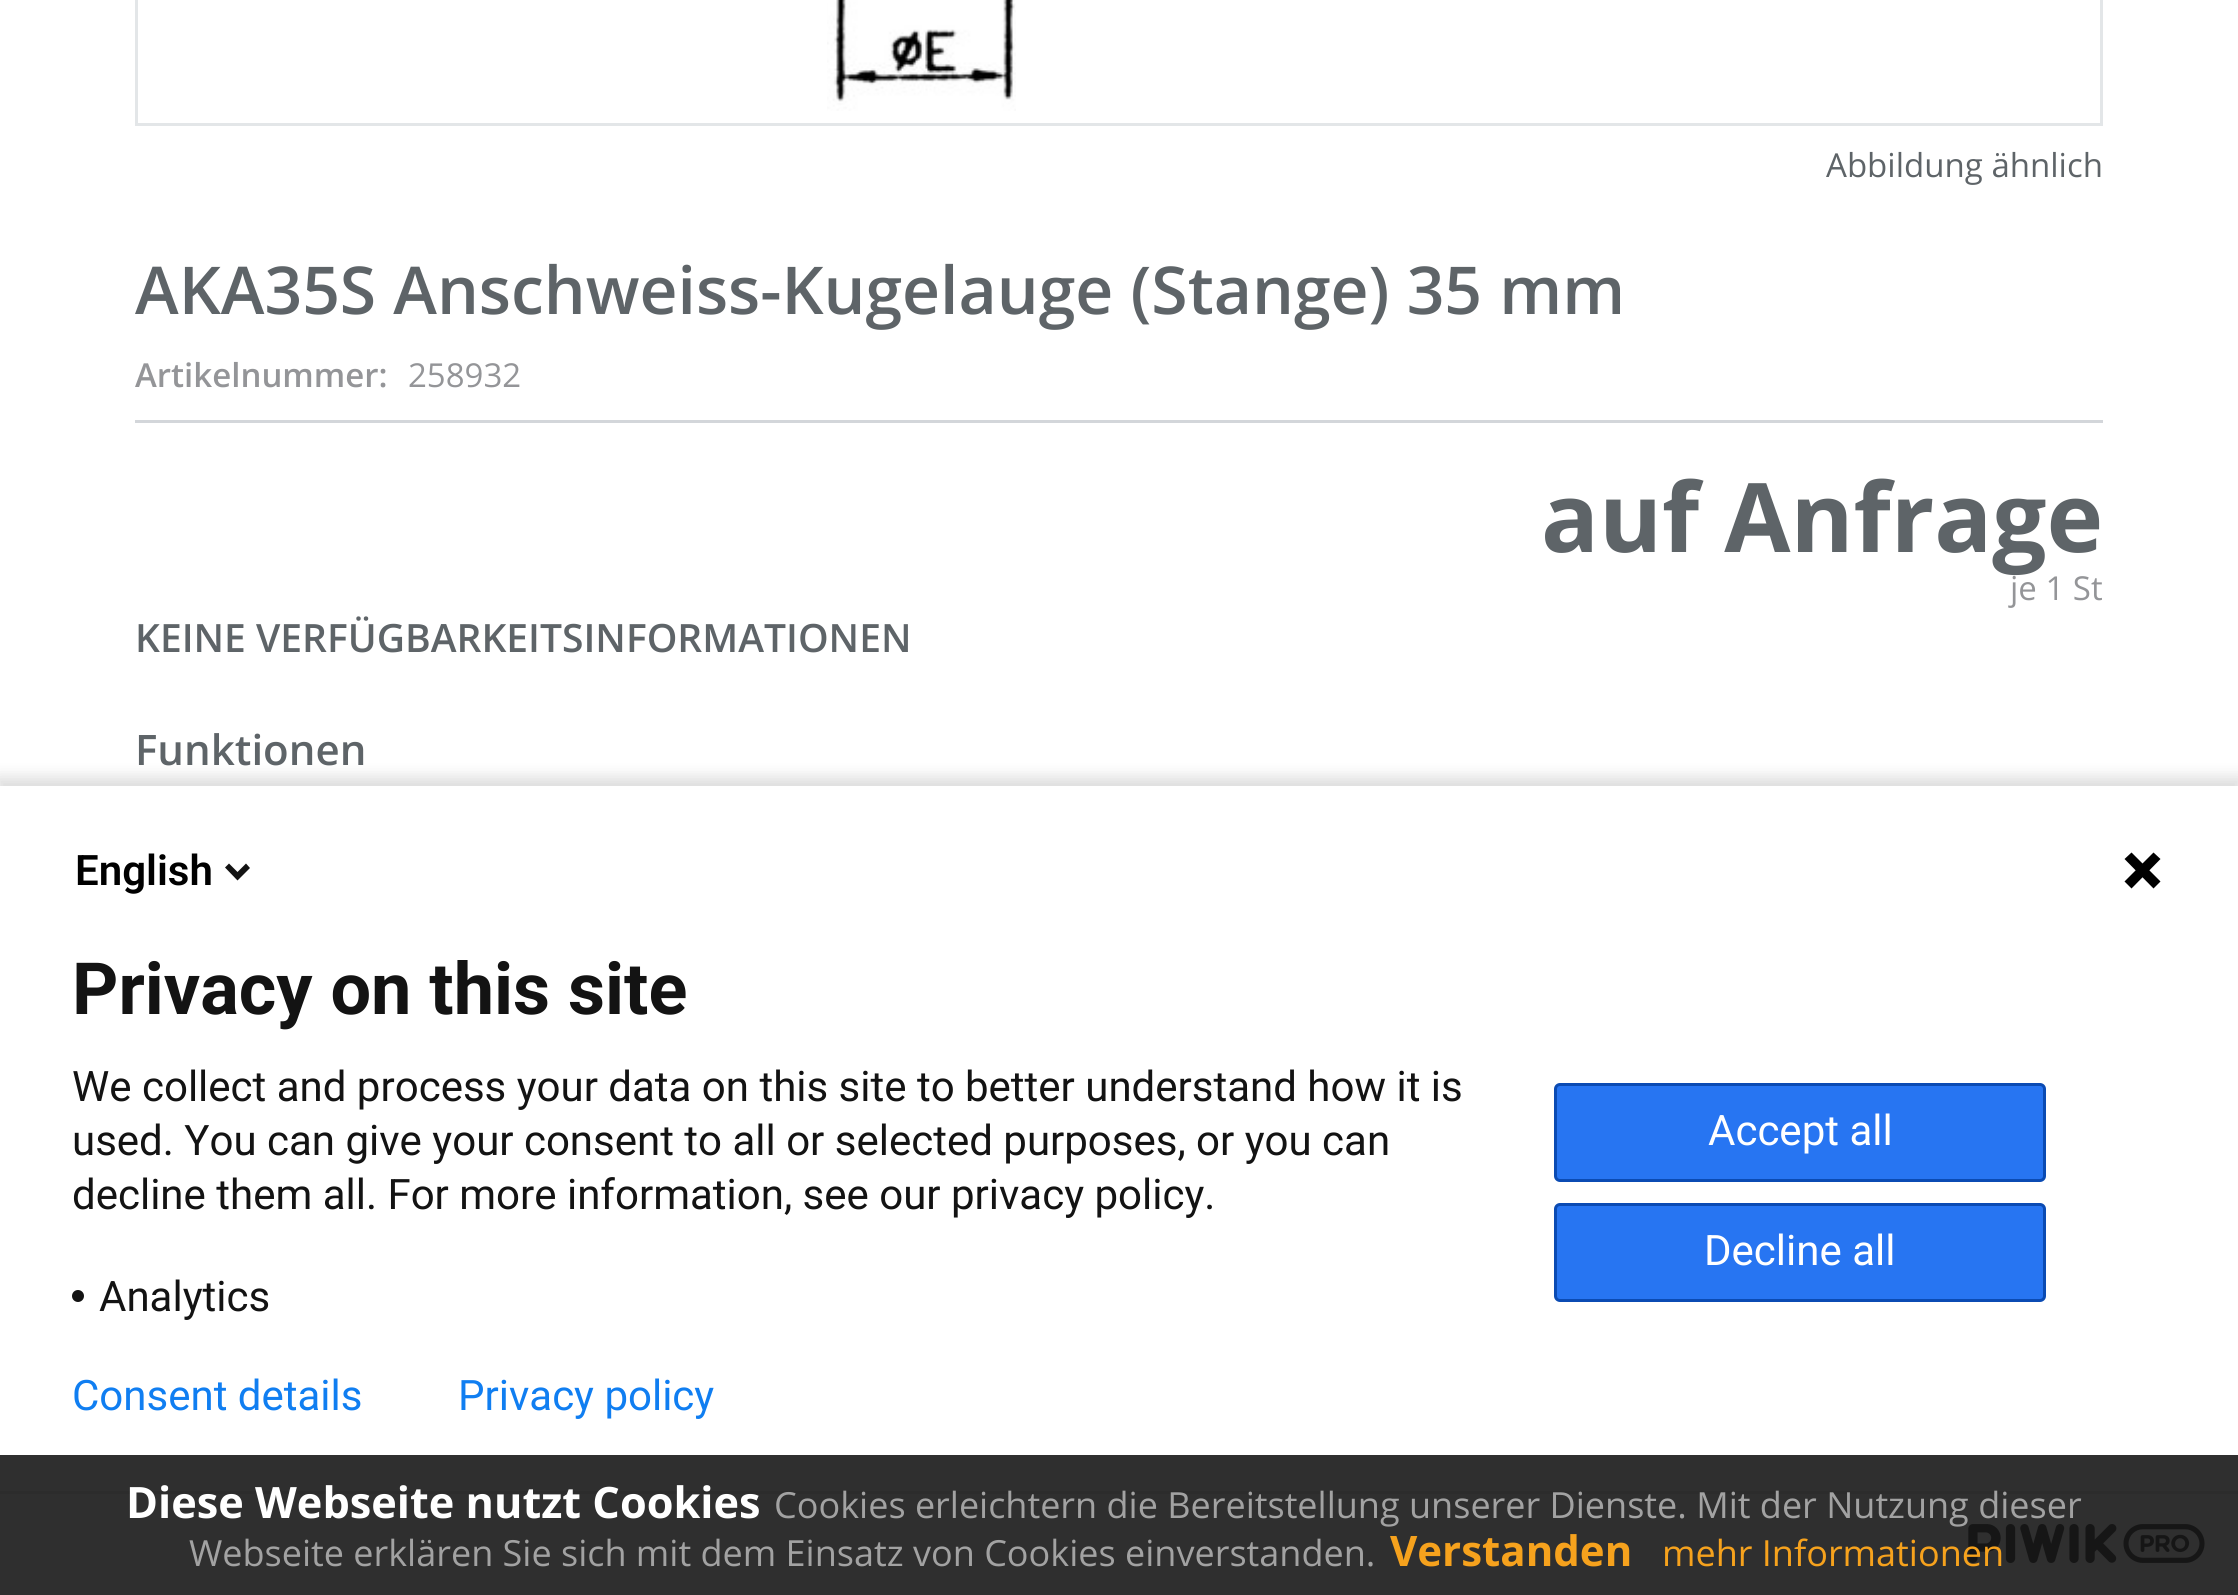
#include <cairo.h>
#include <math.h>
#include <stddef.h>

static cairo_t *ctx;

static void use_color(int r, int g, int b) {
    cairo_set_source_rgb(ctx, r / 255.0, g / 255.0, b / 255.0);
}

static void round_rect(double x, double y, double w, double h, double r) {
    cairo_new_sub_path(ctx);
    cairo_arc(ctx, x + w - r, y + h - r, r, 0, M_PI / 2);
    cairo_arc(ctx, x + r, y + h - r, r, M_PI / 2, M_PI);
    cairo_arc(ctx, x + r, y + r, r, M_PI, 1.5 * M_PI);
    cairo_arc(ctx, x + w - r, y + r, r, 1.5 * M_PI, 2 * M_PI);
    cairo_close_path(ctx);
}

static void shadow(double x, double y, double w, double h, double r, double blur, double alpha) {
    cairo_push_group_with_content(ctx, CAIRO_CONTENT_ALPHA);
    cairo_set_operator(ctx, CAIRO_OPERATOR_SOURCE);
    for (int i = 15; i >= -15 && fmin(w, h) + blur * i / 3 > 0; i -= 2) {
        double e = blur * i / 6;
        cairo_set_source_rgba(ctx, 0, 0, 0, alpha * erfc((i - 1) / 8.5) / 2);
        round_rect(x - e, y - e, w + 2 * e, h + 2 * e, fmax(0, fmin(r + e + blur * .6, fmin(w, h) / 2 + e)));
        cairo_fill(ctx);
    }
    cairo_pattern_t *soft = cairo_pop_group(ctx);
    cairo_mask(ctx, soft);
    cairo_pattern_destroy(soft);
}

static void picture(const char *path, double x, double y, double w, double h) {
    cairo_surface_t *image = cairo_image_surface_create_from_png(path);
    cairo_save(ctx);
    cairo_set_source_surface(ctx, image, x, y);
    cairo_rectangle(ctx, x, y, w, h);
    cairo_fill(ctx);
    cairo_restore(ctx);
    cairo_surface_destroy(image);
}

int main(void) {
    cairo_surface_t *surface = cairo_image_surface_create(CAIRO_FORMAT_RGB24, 2238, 1595);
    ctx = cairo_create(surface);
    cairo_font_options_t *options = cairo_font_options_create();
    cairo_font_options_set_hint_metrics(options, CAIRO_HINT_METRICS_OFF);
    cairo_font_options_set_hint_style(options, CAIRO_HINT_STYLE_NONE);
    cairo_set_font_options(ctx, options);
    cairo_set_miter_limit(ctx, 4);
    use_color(255, 255, 255);
    cairo_paint(ctx);
    cairo_rectangle(ctx, 136.5, -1.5, 1965, 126);
    use_color(227, 230, 232);
    cairo_set_line_width(ctx, 3);
    cairo_stroke(ctx);
    picture("img1.png", 827, 0, 189, 111);
    cairo_select_font_face(ctx, "Open Sans", CAIRO_FONT_SLANT_NORMAL, CAIRO_FONT_WEIGHT_NORMAL);
    cairo_set_font_size(ctx, 33);
    use_color(94, 100, 104);
    cairo_move_to(ctx, 1826, 177);
    cairo_show_text(ctx, "Abbildung ähnlich");
    use_color(211, 214, 218);
    cairo_rectangle(ctx, 135, 420, 1968, 3);
    cairo_fill(ctx);
    cairo_select_font_face(ctx, "Open Sans SemiBold", CAIRO_FONT_SLANT_NORMAL, CAIRO_FONT_WEIGHT_NORMAL);
    cairo_set_font_size(ctx, 66);
    use_color(94, 100, 104);
    cairo_move_to(ctx, 135, 314);
    cairo_show_text(ctx, "AKA35S Anschweiss-Kugelauge (Stange) 35 mm");
    cairo_set_font_size(ctx, 33);
    use_color(148, 149, 152);
    cairo_move_to(ctx, 135, 387);
    cairo_show_text(ctx, "Artikelnummer:");
    cairo_select_font_face(ctx, "Open Sans", CAIRO_FONT_SLANT_NORMAL, CAIRO_FONT_WEIGHT_NORMAL);
    cairo_move_to(ctx, 408, 387);
    cairo_show_text(ctx, "258932");
    cairo_select_font_face(ctx, "Open Sans", CAIRO_FONT_SLANT_NORMAL, CAIRO_FONT_WEIGHT_BOLD);
    cairo_set_font_size(ctx, 96);
    use_color(94, 100, 104);
    cairo_move_to(ctx, 1541, 552);
    cairo_show_text(ctx, "auf Anfrage");
    cairo_select_font_face(ctx, "Open Sans", CAIRO_FONT_SLANT_NORMAL, CAIRO_FONT_WEIGHT_NORMAL);
    cairo_set_font_size(ctx, 33);
    use_color(148, 149, 152);
    cairo_move_to(ctx, 2010, 600);
    cairo_show_text(ctx, "je 1 St");
    cairo_select_font_face(ctx, "Open Sans SemiBold", CAIRO_FONT_SLANT_NORMAL, CAIRO_FONT_WEIGHT_NORMAL);
    cairo_set_font_size(ctx, 39);
    use_color(94, 100, 104);
    cairo_move_to(ctx, 135, 652);
    cairo_show_text(ctx, "KEINE VERFÜGBARKEITSINFORMATIONEN");
    cairo_set_font_size(ctx, 42);
    cairo_move_to(ctx, 135, 765);
    cairo_show_text(ctx, "Funktionen");
    use_color(0, 0, 0);
    shadow(-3, 777, 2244, 816, 0, 7.5, 0.14);
    use_color(255, 255, 255);
    cairo_rectangle(ctx, 0, 786, 2238, 705);
    cairo_fill(ctx);
    cairo_select_font_face(ctx, "Roboto SemiBold", CAIRO_FONT_SLANT_NORMAL, CAIRO_FONT_WEIGHT_NORMAL);
    use_color(0, 0, 0);
    cairo_move_to(ctx, 75, 885);
    cairo_show_text(ctx, "English");
    use_color(19, 19, 19);
    cairo_new_path(ctx);
    cairo_move_to(ctx, 237.5, 872);
    cairo_line_to(ctx, 246, 863.5);
    cairo_line_to(ctx, 250, 868);
    cairo_line_to(ctx, 237.5, 880.5);
    cairo_line_to(ctx, 225, 867.5);
    cairo_line_to(ctx, 229, 863.5);
    cairo_close_path(ctx);
    cairo_fill(ctx);
    use_color(0, 0, 0);
    cairo_new_path(ctx);
    cairo_move_to(ctx, 2124.5, 859);
    cairo_line_to(ctx, 2131.5, 852.5);
    cairo_line_to(ctx, 2160.5, 881.5);
    cairo_line_to(ctx, 2153.5, 888.5);
    cairo_line_to(ctx, 2124.5, 859);
    cairo_fill(ctx);
    cairo_new_path(ctx);
    cairo_move_to(ctx, 2153.5, 852.5);
    cairo_line_to(ctx, 2160.5, 859);
    cairo_line_to(ctx, 2131.5, 888.5);
    cairo_line_to(ctx, 2124.5, 881.5);
    cairo_line_to(ctx, 2153.5, 852.5);
    cairo_fill(ctx);
    cairo_select_font_face(ctx, "Roboto", CAIRO_FONT_SLANT_NORMAL, CAIRO_FONT_WEIGHT_BOLD);
    cairo_set_font_size(ctx, 72);
    use_color(19, 19, 19);
    cairo_move_to(ctx, 72, 1014);
    cairo_show_text(ctx, "Privacy on this site");
    cairo_select_font_face(ctx, "Roboto", CAIRO_FONT_SLANT_NORMAL, CAIRO_FONT_WEIGHT_NORMAL);
    cairo_set_font_size(ctx, 42);
    cairo_move_to(ctx, 72, 1101);
    cairo_show_text(ctx, "We collect and process your data on this site to better understand how it is");
    cairo_move_to(ctx, 72, 1155);
    cairo_show_text(ctx, "used. You can give your consent to all or selected purposes, or you can");
    cairo_move_to(ctx, 72, 1209);
    cairo_show_text(ctx, "decline them all. For more information, see our privacy policy.");
    cairo_new_path(ctx);
    cairo_arc(ctx, 78, 1296, 6, 0, 2 * M_PI);
    cairo_fill(ctx);
    cairo_move_to(ctx, 99, 1311);
    cairo_show_text(ctx, "Analytics");
    use_color(39, 117, 242);
    round_rect(1555.5, 1084.5, 489, 96, 4.5);
    cairo_fill_preserve(ctx);
    use_color(11, 75, 179);
    cairo_stroke(ctx);
    use_color(255, 255, 255);
    cairo_move_to(ctx, 1708, 1145);
    cairo_show_text(ctx, "Accept all");
    use_color(39, 117, 242);
    round_rect(1555.5, 1204.5, 489, 96, 4.5);
    cairo_fill_preserve(ctx);
    use_color(11, 75, 179);
    cairo_stroke(ctx);
    use_color(255, 255, 255);
    cairo_move_to(ctx, 1704, 1265);
    cairo_show_text(ctx, "Decline all");
    use_color(16, 126, 241);
    cairo_move_to(ctx, 72, 1410);
    cairo_show_text(ctx, "Consent details");
    cairo_move_to(ctx, 458, 1410);
    cairo_show_text(ctx, "Privacy policy");
    use_color(250, 250, 250);
    cairo_rectangle(ctx, 0, 1494, 2238, 101);
    cairo_fill(ctx);
    use_color(221, 221, 221);
    cairo_rectangle(ctx, 0, 1491, 2238, 3);
    cairo_fill(ctx);
    picture("img2.png", 1968, 1524, 237, 39);
    cairo_set_source_rgba(ctx, 0.098, 0.098, 0.098, 0.9);
    cairo_rectangle(ctx, 0, 1455, 2238, 140);
    cairo_fill(ctx);
    cairo_select_font_face(ctx, "Open Sans", CAIRO_FONT_SLANT_NORMAL, CAIRO_FONT_WEIGHT_BOLD);
    cairo_set_font_size(ctx, 43.25);
    use_color(255, 255, 255);
    cairo_move_to(ctx, 126, 1518);
    cairo_show_text(ctx, "Diese Webseite nutzt Cookies");
    cairo_select_font_face(ctx, "Open Sans", CAIRO_FONT_SLANT_NORMAL, CAIRO_FONT_WEIGHT_NORMAL);
    cairo_set_font_size(ctx, 36);
    use_color(162, 162, 162);
    cairo_move_to(ctx, 774, 1518);
    cairo_show_text(ctx, "Cookies erleichtern die Bereitstellung unserer Dienste. Mit der Nutzung dieser");
    cairo_move_to(ctx, 189, 1566);
    cairo_show_text(ctx, "Webseite erklären Sie sich mit dem Einsatz von Cookies einverstanden.");
    cairo_select_font_face(ctx, "Open Sans", CAIRO_FONT_SLANT_NORMAL, CAIRO_FONT_WEIGHT_BOLD);
    cairo_set_font_size(ctx, 42);
    use_color(246, 162, 29);
    cairo_move_to(ctx, 1390, 1566);
    cairo_show_text(ctx, "Verstanden");
    cairo_select_font_face(ctx, "Open Sans", CAIRO_FONT_SLANT_NORMAL, CAIRO_FONT_WEIGHT_NORMAL);
    cairo_set_font_size(ctx, 36);
    cairo_move_to(ctx, 1662, 1566);
    cairo_show_text(ctx, "mehr Informationen");
    cairo_surface_write_to_png(surface, "result.png");
    cairo_font_options_destroy(options);
    cairo_destroy(ctx);
    cairo_surface_destroy(surface);
    return 0;
}
